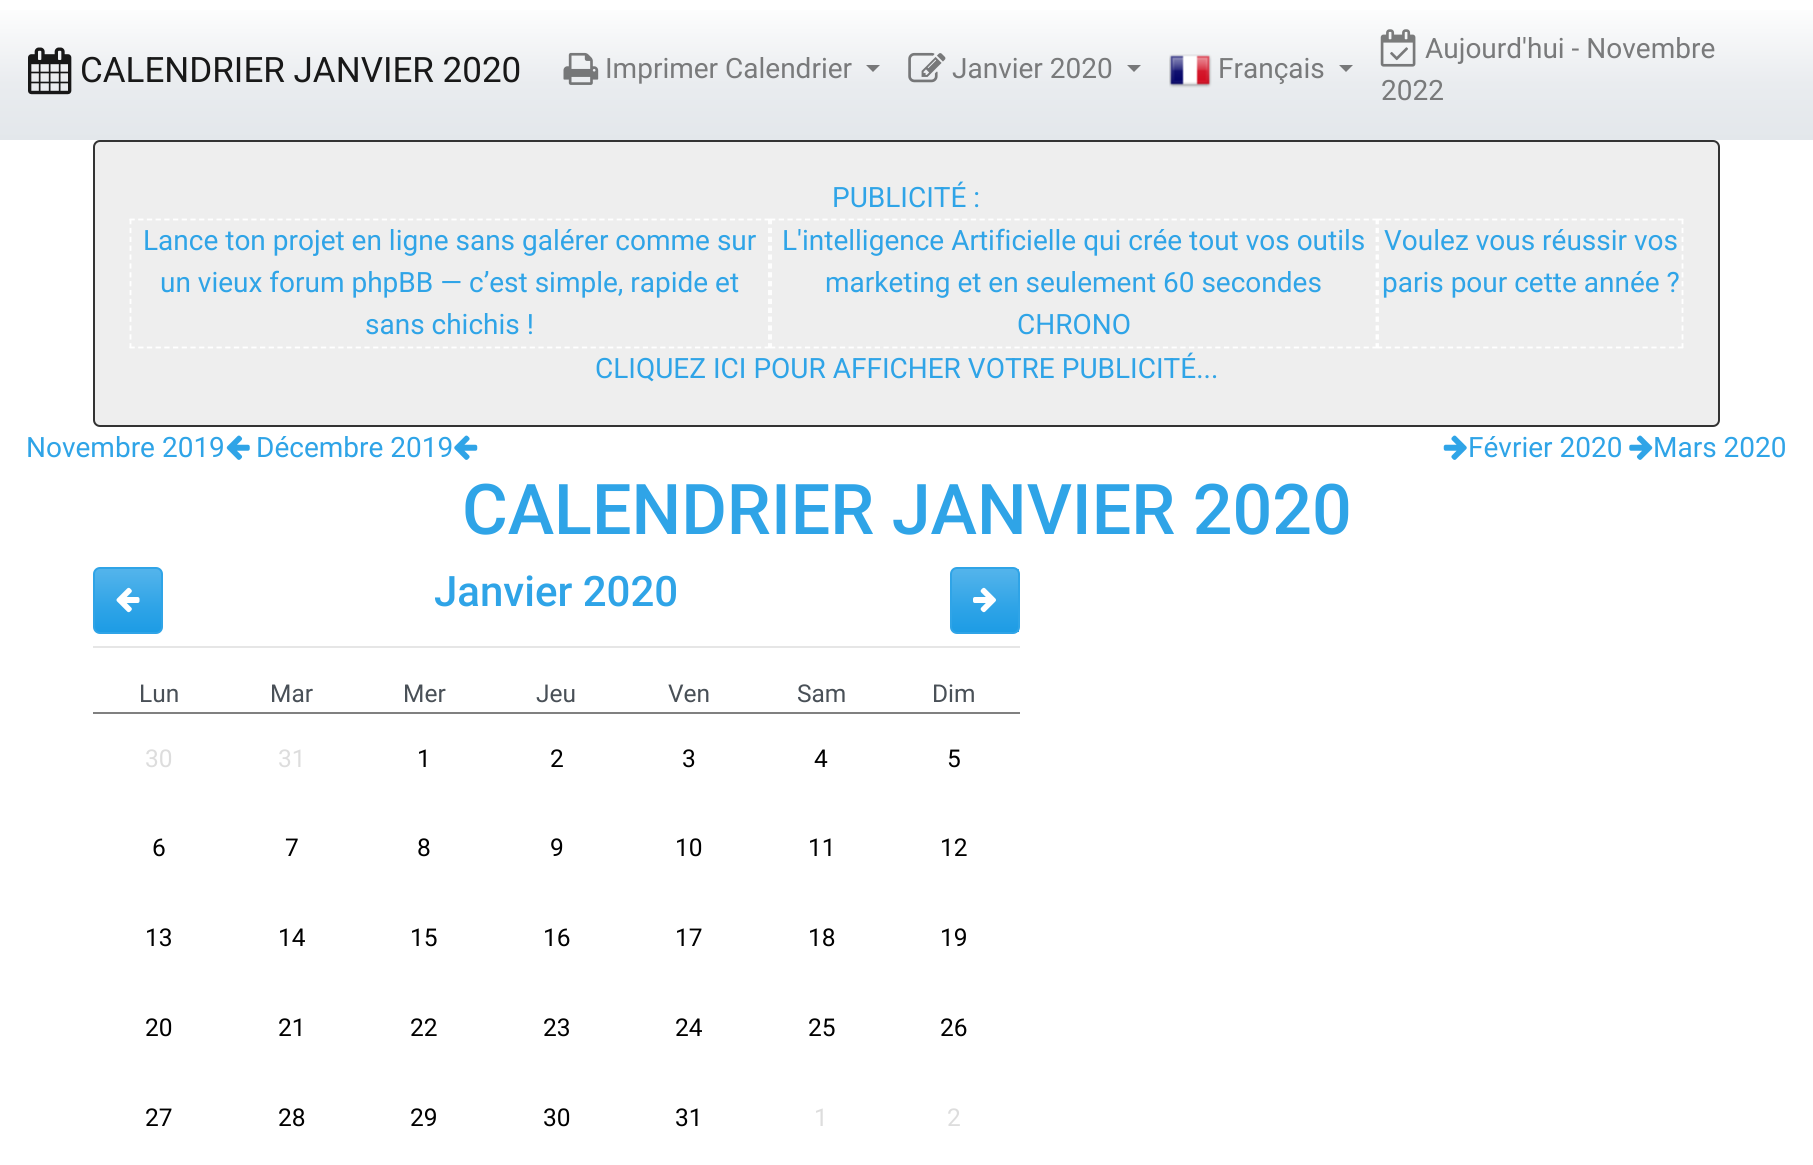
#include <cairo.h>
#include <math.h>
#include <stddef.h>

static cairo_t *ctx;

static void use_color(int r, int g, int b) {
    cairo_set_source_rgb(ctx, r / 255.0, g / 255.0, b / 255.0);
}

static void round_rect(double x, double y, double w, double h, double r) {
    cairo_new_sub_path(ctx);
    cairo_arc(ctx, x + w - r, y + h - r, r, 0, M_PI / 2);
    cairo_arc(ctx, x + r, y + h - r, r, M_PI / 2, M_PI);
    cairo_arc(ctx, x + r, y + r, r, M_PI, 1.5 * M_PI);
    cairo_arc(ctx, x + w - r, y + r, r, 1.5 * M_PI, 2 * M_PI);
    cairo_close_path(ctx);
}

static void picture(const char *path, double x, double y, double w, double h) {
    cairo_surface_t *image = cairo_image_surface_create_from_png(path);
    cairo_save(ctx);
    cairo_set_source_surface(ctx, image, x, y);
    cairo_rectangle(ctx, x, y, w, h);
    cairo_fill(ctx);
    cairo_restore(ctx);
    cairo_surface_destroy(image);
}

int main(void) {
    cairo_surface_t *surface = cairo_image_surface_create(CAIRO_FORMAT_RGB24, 1813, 1165);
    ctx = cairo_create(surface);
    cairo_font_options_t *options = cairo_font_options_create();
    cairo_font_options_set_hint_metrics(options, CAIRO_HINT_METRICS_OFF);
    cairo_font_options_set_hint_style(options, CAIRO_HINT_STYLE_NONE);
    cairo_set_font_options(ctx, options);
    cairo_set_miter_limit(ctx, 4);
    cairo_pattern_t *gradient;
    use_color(255, 255, 255);
    cairo_paint(ctx);
    gradient = cairo_pattern_create_linear(907, 0, 907, 140);
    cairo_pattern_add_color_stop_rgba(gradient, 0, 1, 1, 1, 1);
    cairo_pattern_add_color_stop_rgba(gradient, 0.6, 0.914, 0.925, 0.937, 1);
    cairo_pattern_add_color_stop_rgba(gradient, 1, 0.89, 0.906, 0.922, 1);
    cairo_set_source(ctx, gradient);
    cairo_pattern_destroy(gradient);
    cairo_rectangle(ctx, 0, 10, 1813, 130);
    cairo_fill(ctx);
    picture("img1.png", 28, 47, 44, 48);
    cairo_select_font_face(ctx, "Roboto", CAIRO_FONT_SLANT_NORMAL, CAIRO_FONT_WEIGHT_NORMAL);
    cairo_set_font_size(ctx, 35);
    use_color(24, 24, 24);
    cairo_move_to(ctx, 80, 82);
    cairo_show_text(ctx, "CALENDRIER JANVIER 2020");
    picture("img2.png", 563, 52, 36, 33);
    cairo_set_font_size(ctx, 28);
    use_color(121, 122, 123);
    cairo_move_to(ctx, 605, 78);
    cairo_show_text(ctx, "Imprimer Calendrier");
    use_color(119, 120, 121);
    cairo_new_path(ctx);
    cairo_move_to(ctx, 866, 65);
    cairo_line_to(ctx, 880, 65);
    cairo_line_to(ctx, 873, 72);
    cairo_close_path(ctx);
    cairo_fill(ctx);
    picture("img3.png", 908, 52, 38, 31);
    use_color(121, 122, 123);
    cairo_move_to(ctx, 952, 78);
    cairo_show_text(ctx, "Janvier 2020");
    use_color(119, 120, 121);
    cairo_new_path(ctx);
    cairo_move_to(ctx, 1127, 65);
    cairo_line_to(ctx, 1141, 65);
    cairo_line_to(ctx, 1134, 72);
    cairo_close_path(ctx);
    cairo_fill(ctx);
    picture("img4.png", 1169, 54, 43, 34);
    use_color(121, 122, 123);
    cairo_move_to(ctx, 1218, 78);
    cairo_show_text(ctx, "Français");
    use_color(119, 120, 121);
    cairo_new_path(ctx);
    cairo_move_to(ctx, 1339, 65);
    cairo_line_to(ctx, 1353, 65);
    cairo_line_to(ctx, 1346, 72);
    cairo_close_path(ctx);
    cairo_fill(ctx);
    picture("img5.png", 1380, 29, 36, 38);
    use_color(121, 122, 123);
    cairo_move_to(ctx, 1425, 58);
    cairo_show_text(ctx, "Aujourd'hui - Novembre");
    cairo_move_to(ctx, 1381, 100);
    cairo_show_text(ctx, "2022");
    use_color(238, 238, 238);
    round_rect(94, 141, 1625, 285, 6);
    cairo_fill_preserve(ctx);
    use_color(51, 51, 51);
    cairo_stroke(ctx);
    use_color(47, 164, 231);
    cairo_move_to(ctx, 832, 207);
    cairo_show_text(ctx, "PUBLICITÉ :");
    cairo_new_path(ctx);
    cairo_move_to(ctx, 129.5, 219.5);
    cairo_line_to(ctx, 770, 219.5);
    use_color(255, 255, 255);
    cairo_set_line_width(ctx, 1.8);
    cairo_set_dash(ctx, (double[]){5.25, 3.45}, 2, 0);
    cairo_stroke(ctx);
    cairo_new_path(ctx);
    cairo_move_to(ctx, 769, 219);
    cairo_line_to(ctx, 769, 348);
    cairo_set_dash(ctx, (double[]){5.25, 3.62}, 2, 0);
    cairo_stroke(ctx);
    cairo_new_path(ctx);
    cairo_move_to(ctx, 129.5, 347.5);
    cairo_line_to(ctx, 770, 347.5);
    cairo_set_dash(ctx, (double[]){5.25, 3.45}, 2, 0);
    cairo_stroke(ctx);
    cairo_new_path(ctx);
    cairo_move_to(ctx, 130.5, 219);
    cairo_line_to(ctx, 130.5, 348);
    cairo_set_dash(ctx, (double[]){5.25, 3.62}, 2, 0);
    cairo_stroke(ctx);
    use_color(47, 164, 231);
    cairo_move_to(ctx, 143, 250);
    cairo_show_text(ctx, "Lance ton projet en ligne sans galérer comme sur");
    cairo_move_to(ctx, 160, 292);
    cairo_show_text(ctx, "un vieux forum phpBB — c’est simple, rapide et");
    cairo_move_to(ctx, 365, 334);
    cairo_show_text(ctx, "sans chichis !");
    cairo_new_path(ctx);
    cairo_move_to(ctx, 770, 219.5);
    cairo_line_to(ctx, 1377, 219.5);
    use_color(255, 255, 255);
    cairo_set_dash(ctx, (double[]){5.25, 3.48}, 2, 0);
    cairo_stroke(ctx);
    cairo_new_path(ctx);
    cairo_move_to(ctx, 1376.5, 219);
    cairo_line_to(ctx, 1376.5, 348);
    cairo_set_dash(ctx, (double[]){5.25, 3.62}, 2, 0);
    cairo_stroke(ctx);
    cairo_new_path(ctx);
    cairo_move_to(ctx, 770, 347.5);
    cairo_line_to(ctx, 1377, 347.5);
    cairo_set_dash(ctx, (double[]){5.25, 3.48}, 2, 0);
    cairo_stroke(ctx);
    cairo_new_path(ctx);
    cairo_move_to(ctx, 771, 219);
    cairo_line_to(ctx, 771, 348);
    cairo_set_dash(ctx, (double[]){5.25, 3.62}, 2, 0);
    cairo_stroke(ctx);
    use_color(47, 164, 231);
    cairo_move_to(ctx, 782, 250);
    cairo_show_text(ctx, "L'intelligence Artificielle qui crée tout vos outils");
    cairo_move_to(ctx, 825, 292);
    cairo_show_text(ctx, "marketing et en seulement 60 secondes");
    cairo_move_to(ctx, 1017, 334);
    cairo_show_text(ctx, "CHRONO");
    cairo_new_path(ctx);
    cairo_move_to(ctx, 1377, 219.5);
    cairo_line_to(ctx, 1683.5, 219.5);
    use_color(255, 255, 255);
    cairo_set_dash(ctx, (double[]){5.25, 3.6}, 2, 0);
    cairo_stroke(ctx);
    cairo_new_path(ctx);
    cairo_move_to(ctx, 1682.5, 219);
    cairo_line_to(ctx, 1682.5, 348);
    cairo_set_dash(ctx, (double[]){5.25, 3.62}, 2, 0);
    cairo_stroke(ctx);
    cairo_new_path(ctx);
    cairo_move_to(ctx, 1377, 347.5);
    cairo_line_to(ctx, 1683.5, 347.5);
    cairo_set_dash(ctx, (double[]){5.25, 3.6}, 2, 0);
    cairo_stroke(ctx);
    cairo_new_path(ctx);
    cairo_move_to(ctx, 1378, 219);
    cairo_line_to(ctx, 1378, 348);
    cairo_set_dash(ctx, (double[]){5.25, 3.62}, 2, 0);
    cairo_stroke(ctx);
    use_color(47, 164, 231);
    cairo_move_to(ctx, 1384, 250);
    cairo_show_text(ctx, "Voulez vous réussir vos");
    cairo_move_to(ctx, 1382, 292);
    cairo_show_text(ctx, "paris pour cette année ?");
    cairo_move_to(ctx, 595, 378);
    cairo_show_text(ctx, "CLIQUEZ ICI POUR AFFICHER VOTRE PUBLICITÉ...");
    cairo_move_to(ctx, 26, 457);
    cairo_show_text(ctx, "Novembre 2019");
    picture("img6.png", 226, 435, 24, 25);
    cairo_move_to(ctx, 256, 457);
    cairo_show_text(ctx, "Décembre 2019");
    picture("img7.png", 454, 435, 24, 25);
    picture("img8.png", 1443, 435, 24, 25);
    cairo_move_to(ctx, 1468, 457);
    cairo_show_text(ctx, "Février 2020");
    picture("img9.png", 1629, 435, 24, 25);
    cairo_move_to(ctx, 1653, 457);
    cairo_show_text(ctx, "Mars 2020");
    cairo_select_font_face(ctx, "Roboto Medium", CAIRO_FONT_SLANT_NORMAL, CAIRO_FONT_WEIGHT_NORMAL);
    cairo_set_font_size(ctx, 70);
    cairo_move_to(ctx, 462, 534);
    cairo_show_text(ctx, "CALENDRIER JANVIER 2020");
    gradient = cairo_pattern_create_linear(128, 569, 128, 632);
    cairo_pattern_add_color_stop_rgba(gradient, 0, 0.329, 0.706, 0.922, 1);
    cairo_pattern_add_color_stop_rgba(gradient, 0.6, 0.184, 0.643, 0.906, 1);
    cairo_pattern_add_color_stop_rgba(gradient, 1, 0.114, 0.612, 0.898, 1);
    cairo_set_source(ctx, gradient);
    cairo_pattern_destroy(gradient);
    cairo_rectangle(ctx, 95, 569, 66, 63);
    cairo_fill(ctx);
    round_rect(94, 568, 68, 65, 6);
    use_color(47, 164, 231);
    cairo_set_line_width(ctx, 2);
    cairo_set_dash(ctx, NULL, 0, 0);
    cairo_stroke(ctx);
    picture("img10.png", 116, 587, 24, 26);
    cairo_set_font_size(ctx, 42);
    cairo_move_to(ctx, 434, 606);
    cairo_show_text(ctx, "Janvier 2020");
    gradient = cairo_pattern_create_linear(985, 569, 985, 632);
    cairo_pattern_add_color_stop_rgba(gradient, 0, 0.329, 0.706, 0.922, 1);
    cairo_pattern_add_color_stop_rgba(gradient, 0.6, 0.184, 0.643, 0.906, 1);
    cairo_pattern_add_color_stop_rgba(gradient, 1, 0.114, 0.612, 0.898, 1);
    cairo_set_source(ctx, gradient);
    cairo_pattern_destroy(gradient);
    cairo_rectangle(ctx, 952, 569, 67, 63);
    cairo_fill(ctx);
    round_rect(951, 568, 68, 65, 6);
    use_color(47, 164, 231);
    cairo_stroke(ctx);
    picture("img11.png", 973, 587, 23, 26);
    use_color(230, 230, 230);
    cairo_rectangle(ctx, 93, 646, 927, 2);
    cairo_fill(ctx);
    use_color(128, 128, 128);
    cairo_rectangle(ctx, 93, 712, 927, 2);
    cairo_fill(ctx);
    cairo_select_font_face(ctx, "Roboto", CAIRO_FONT_SLANT_NORMAL, CAIRO_FONT_WEIGHT_NORMAL);
    cairo_set_font_size(ctx, 24.5);
    use_color(73, 80, 87);
    cairo_move_to(ctx, 139, 702);
    cairo_show_text(ctx, "Lun");
    cairo_move_to(ctx, 270, 702);
    cairo_show_text(ctx, "Mar");
    cairo_move_to(ctx, 403, 702);
    cairo_show_text(ctx, "Mer");
    cairo_move_to(ctx, 536, 702);
    cairo_show_text(ctx, "Jeu");
    cairo_move_to(ctx, 668, 702);
    cairo_show_text(ctx, "Ven");
    cairo_move_to(ctx, 797, 702);
    cairo_show_text(ctx, "Sam");
    cairo_move_to(ctx, 932, 702);
    cairo_show_text(ctx, "Dim");
    use_color(221, 221, 221);
    cairo_move_to(ctx, 145, 767);
    cairo_show_text(ctx, "30");
    cairo_move_to(ctx, 278, 767);
    cairo_show_text(ctx, "31");
    use_color(0, 0, 0);
    cairo_move_to(ctx, 417, 767);
    cairo_show_text(ctx, "1");
    cairo_move_to(ctx, 550, 767);
    cairo_show_text(ctx, "2");
    cairo_move_to(ctx, 682, 767);
    cairo_show_text(ctx, "3");
    cairo_move_to(ctx, 814, 767);
    cairo_show_text(ctx, "4");
    cairo_move_to(ctx, 947, 767);
    cairo_show_text(ctx, "5");
    cairo_move_to(ctx, 152, 856);
    cairo_show_text(ctx, "6");
    cairo_move_to(ctx, 285, 856);
    cairo_show_text(ctx, "7");
    cairo_move_to(ctx, 417, 856);
    cairo_show_text(ctx, "8");
    cairo_move_to(ctx, 550, 856);
    cairo_show_text(ctx, "9");
    cairo_move_to(ctx, 675, 856);
    cairo_show_text(ctx, "10");
    cairo_move_to(ctx, 808, 856);
    cairo_show_text(ctx, "11");
    cairo_move_to(ctx, 940, 856);
    cairo_show_text(ctx, "12");
    cairo_move_to(ctx, 145, 946);
    cairo_show_text(ctx, "13");
    cairo_move_to(ctx, 278, 946);
    cairo_show_text(ctx, "14");
    cairo_move_to(ctx, 410, 946);
    cairo_show_text(ctx, "15");
    cairo_move_to(ctx, 543, 946);
    cairo_show_text(ctx, "16");
    cairo_move_to(ctx, 675, 946);
    cairo_show_text(ctx, "17");
    cairo_move_to(ctx, 808, 946);
    cairo_show_text(ctx, "18");
    cairo_move_to(ctx, 940, 946);
    cairo_show_text(ctx, "19");
    cairo_move_to(ctx, 145, 1036);
    cairo_show_text(ctx, "20");
    cairo_move_to(ctx, 278, 1036);
    cairo_show_text(ctx, "21");
    cairo_move_to(ctx, 410, 1036);
    cairo_show_text(ctx, "22");
    cairo_move_to(ctx, 543, 1036);
    cairo_show_text(ctx, "23");
    cairo_move_to(ctx, 675, 1036);
    cairo_show_text(ctx, "24");
    cairo_move_to(ctx, 808, 1036);
    cairo_show_text(ctx, "25");
    cairo_move_to(ctx, 940, 1036);
    cairo_show_text(ctx, "26");
    cairo_move_to(ctx, 145, 1126);
    cairo_show_text(ctx, "27");
    cairo_move_to(ctx, 278, 1126);
    cairo_show_text(ctx, "28");
    cairo_move_to(ctx, 410, 1126);
    cairo_show_text(ctx, "29");
    cairo_move_to(ctx, 543, 1126);
    cairo_show_text(ctx, "30");
    cairo_move_to(ctx, 675, 1126);
    cairo_show_text(ctx, "31");
    use_color(221, 221, 221);
    cairo_move_to(ctx, 814, 1126);
    cairo_show_text(ctx, "1");
    cairo_move_to(ctx, 947, 1126);
    cairo_show_text(ctx, "2");
    cairo_surface_write_to_png(surface, "result.png");
    cairo_font_options_destroy(options);
    cairo_destroy(ctx);
    cairo_surface_destroy(surface);
    return 0;
}
